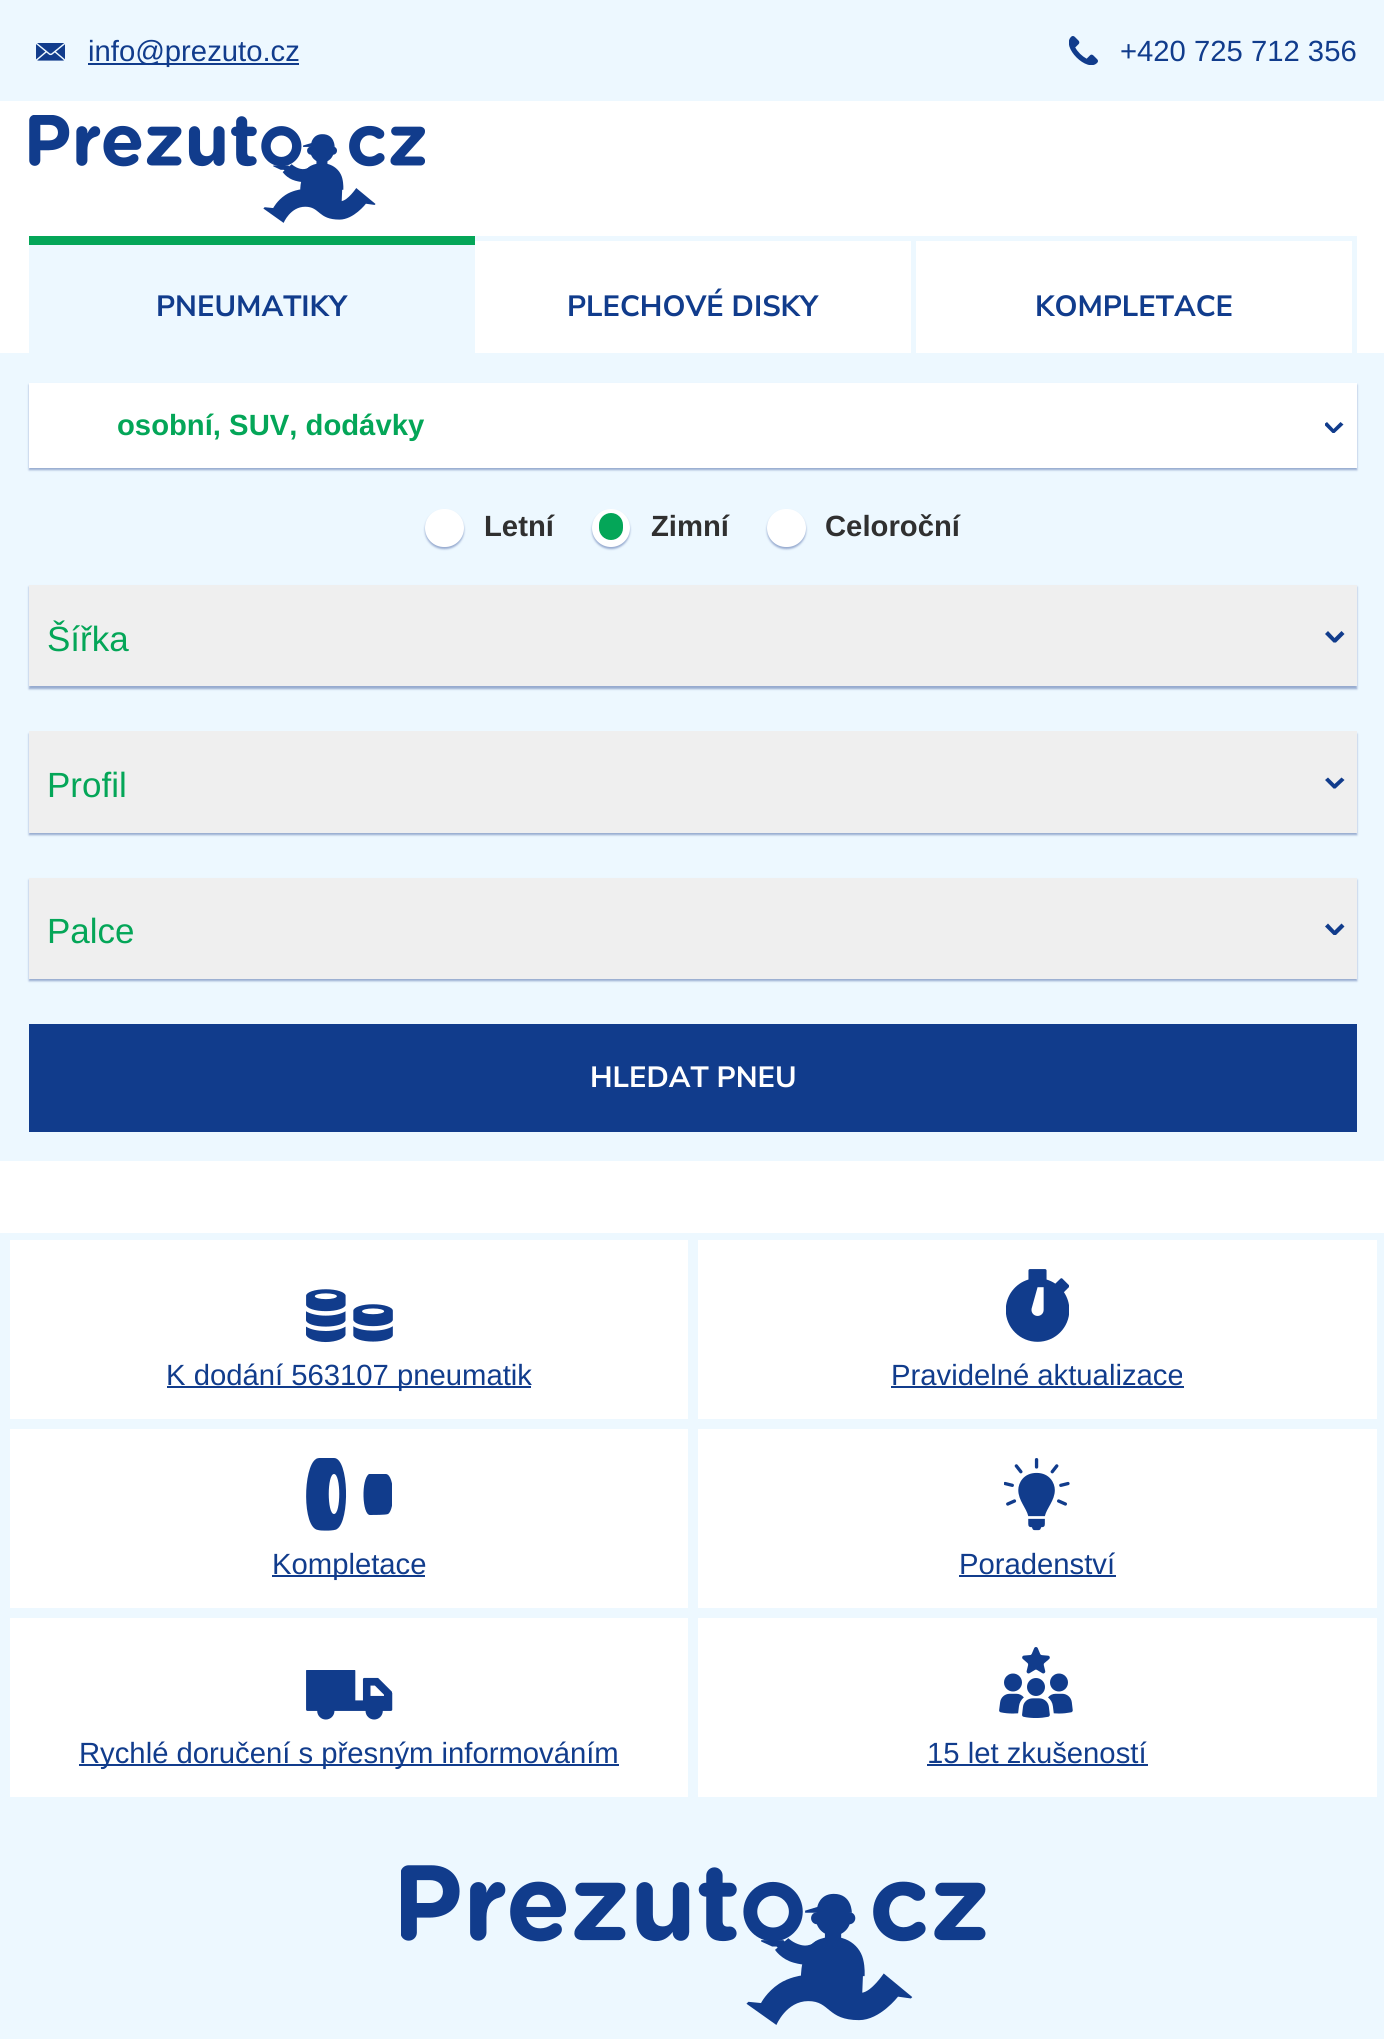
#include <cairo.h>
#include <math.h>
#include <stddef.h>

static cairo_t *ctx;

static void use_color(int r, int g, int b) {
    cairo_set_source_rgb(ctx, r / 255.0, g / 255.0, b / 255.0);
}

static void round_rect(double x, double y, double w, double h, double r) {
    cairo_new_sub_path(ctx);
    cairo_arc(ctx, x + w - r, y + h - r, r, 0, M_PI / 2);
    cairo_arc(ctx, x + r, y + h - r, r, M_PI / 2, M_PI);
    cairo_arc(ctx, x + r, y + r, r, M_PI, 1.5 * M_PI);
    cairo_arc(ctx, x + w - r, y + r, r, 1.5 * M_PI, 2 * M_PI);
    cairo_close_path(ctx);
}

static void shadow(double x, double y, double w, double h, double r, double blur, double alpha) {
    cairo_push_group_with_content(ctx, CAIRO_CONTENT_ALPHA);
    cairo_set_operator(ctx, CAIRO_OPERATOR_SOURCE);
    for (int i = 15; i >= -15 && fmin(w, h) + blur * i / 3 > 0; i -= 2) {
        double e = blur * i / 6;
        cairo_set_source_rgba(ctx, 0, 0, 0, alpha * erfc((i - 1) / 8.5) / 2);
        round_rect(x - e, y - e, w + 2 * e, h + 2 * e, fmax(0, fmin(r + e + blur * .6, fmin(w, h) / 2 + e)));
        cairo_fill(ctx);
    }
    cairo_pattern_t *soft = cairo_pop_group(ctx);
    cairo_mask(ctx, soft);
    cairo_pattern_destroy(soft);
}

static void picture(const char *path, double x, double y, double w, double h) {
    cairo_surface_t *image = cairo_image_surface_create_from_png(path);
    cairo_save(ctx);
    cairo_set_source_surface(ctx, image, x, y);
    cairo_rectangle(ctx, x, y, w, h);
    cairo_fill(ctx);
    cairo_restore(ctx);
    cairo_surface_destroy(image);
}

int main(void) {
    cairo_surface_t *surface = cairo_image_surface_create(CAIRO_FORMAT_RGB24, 1384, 2039);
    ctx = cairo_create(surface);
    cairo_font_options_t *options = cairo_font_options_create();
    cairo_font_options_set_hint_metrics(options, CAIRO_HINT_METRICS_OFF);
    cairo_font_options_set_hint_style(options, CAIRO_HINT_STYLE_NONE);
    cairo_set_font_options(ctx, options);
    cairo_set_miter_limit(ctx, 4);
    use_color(255, 255, 255);
    cairo_paint(ctx);
    use_color(237, 248, 255);
    cairo_rectangle(ctx, 0, 0, 1384, 101);
    cairo_fill(ctx);
    picture("img1.png", 36, 43, 29, 18);
    use_color(17, 60, 140);
    cairo_rectangle(ctx, 88, 63, 211, 2);
    cairo_fill(ctx);
    cairo_select_font_face(ctx, "Liberation Sans", CAIRO_FONT_SLANT_NORMAL, CAIRO_FONT_WEIGHT_NORMAL);
    cairo_set_font_size(ctx, 29.25);
    cairo_move_to(ctx, 88, 61);
    cairo_show_text(ctx, "info@prezuto.cz");
    picture("img2.png", 1069, 36, 29, 29);
    cairo_move_to(ctx, 1120, 61);
    cairo_show_text(ctx, "+420 725 712 356");
    use_color(237, 248, 255);
    cairo_rectangle(ctx, 29, 236, 1328, 117);
    cairo_fill(ctx);
    use_color(4, 166, 88);
    cairo_rectangle(ctx, 29, 236, 446, 9);
    cairo_fill(ctx);
    cairo_select_font_face(ctx, "Nunito Sans", CAIRO_FONT_SLANT_NORMAL, CAIRO_FONT_WEIGHT_BOLD);
    use_color(17, 60, 140);
    cairo_move_to(ctx, 156, 316);
    cairo_show_text(ctx, "PNEUMATIKY");
    use_color(255, 255, 255);
    cairo_rectangle(ctx, 475, 241, 436, 112);
    cairo_fill(ctx);
    use_color(17, 60, 140);
    cairo_move_to(ctx, 567, 316);
    cairo_show_text(ctx, "PLECHOVÉ DISKY");
    use_color(255, 255, 255);
    cairo_rectangle(ctx, 916, 241, 436, 112);
    cairo_fill(ctx);
    use_color(17, 60, 140);
    cairo_move_to(ctx, 1035, 316);
    cairo_show_text(ctx, "KOMPLETACE");
    picture("img3.png", 29, 115, 396, 108);
    use_color(237, 248, 255);
    cairo_rectangle(ctx, 0, 353, 1384, 808);
    cairo_fill(ctx);
    use_color(150, 170, 207);
    shadow(29, 385, 1328, 85, 0, 1, 1);
    use_color(255, 255, 255);
    cairo_rectangle(ctx, 29, 383, 1328, 85);
    cairo_fill(ctx);
    cairo_select_font_face(ctx, "Liberation Sans", CAIRO_FONT_SLANT_NORMAL, CAIRO_FONT_WEIGHT_BOLD);
    use_color(4, 166, 88);
    cairo_move_to(ctx, 117, 435);
    cairo_show_text(ctx, "osobní, SUV, dodávky");
    use_color(17, 60, 140);
    cairo_new_path(ctx);
    cairo_move_to(ctx, 1325, 423.5);
    cairo_line_to(ctx, 1327, 422);
    cairo_line_to(ctx, 1333.5, 429);
    cairo_line_to(ctx, 1340.5, 422);
    cairo_line_to(ctx, 1343.5, 424.5);
    cairo_line_to(ctx, 1334.5, 433);
    cairo_line_to(ctx, 1332.5, 433);
    cairo_line_to(ctx, 1325, 425.5);
    cairo_close_path(ctx);
    cairo_fill(ctx);
    use_color(150, 170, 207);
    shadow(425, 511, 39, 38, 19, 1, 1);
    use_color(255, 255, 255);
    round_rect(425, 509, 39, 38, 19);
    cairo_fill(ctx);
    use_color(48, 48, 48);
    cairo_move_to(ctx, 484, 536);
    cairo_show_text(ctx, "Letní");
    use_color(150, 170, 207);
    shadow(592, 511, 38, 38, 19, 1, 1);
    use_color(255, 255, 255);
    cairo_arc(ctx, 611, 528, 19, 0, 2 * M_PI);
    cairo_fill(ctx);
    use_color(4, 166, 88);
    round_rect(599, 513, 24, 27, 12);
    cairo_fill(ctx);
    use_color(48, 48, 48);
    cairo_move_to(ctx, 651, 536);
    cairo_show_text(ctx, "Zimní");
    use_color(150, 170, 207);
    shadow(767, 511, 39, 38, 19, 1, 1);
    use_color(255, 255, 255);
    round_rect(767, 509, 39, 38, 19);
    cairo_fill(ctx);
    use_color(48, 48, 48);
    cairo_move_to(ctx, 825, 536);
    cairo_show_text(ctx, "Celoroční");
    use_color(150, 170, 207);
    shadow(29, 587, 1328, 102, 0, 1, 1);
    use_color(239, 239, 239);
    cairo_rectangle(ctx, 29, 585, 1328, 101);
    cairo_fill(ctx);
    cairo_select_font_face(ctx, "Liberation Sans", CAIRO_FONT_SLANT_NORMAL, CAIRO_FONT_WEIGHT_NORMAL);
    cairo_set_font_size(ctx, 35);
    use_color(4, 166, 88);
    cairo_move_to(ctx, 47, 651);
    cairo_show_text(ctx, "Šířka");
    use_color(17, 60, 140);
    cairo_new_path(ctx);
    cairo_move_to(ctx, 1325, 634);
    cairo_line_to(ctx, 1328, 631);
    cairo_line_to(ctx, 1334.5, 638);
    cairo_line_to(ctx, 1341.5, 631);
    cairo_line_to(ctx, 1344.5, 634);
    cairo_line_to(ctx, 1336, 642.5);
    cairo_line_to(ctx, 1333.5, 642.5);
    cairo_close_path(ctx);
    cairo_fill(ctx);
    use_color(150, 170, 207);
    shadow(29, 734, 1328, 101, 0, 1, 1);
    use_color(239, 239, 239);
    cairo_rectangle(ctx, 29, 731, 1328, 102);
    cairo_fill(ctx);
    use_color(4, 166, 88);
    cairo_move_to(ctx, 47, 797);
    cairo_show_text(ctx, "Profil");
    use_color(17, 60, 140);
    cairo_new_path(ctx);
    cairo_move_to(ctx, 1325, 780);
    cairo_line_to(ctx, 1328, 777.5);
    cairo_line_to(ctx, 1334.5, 784);
    cairo_line_to(ctx, 1341.5, 777.5);
    cairo_line_to(ctx, 1344.5, 780);
    cairo_line_to(ctx, 1335.5, 788.5);
    cairo_line_to(ctx, 1333.5, 788.5);
    cairo_close_path(ctx);
    cairo_fill(ctx);
    use_color(150, 170, 207);
    shadow(29, 880, 1328, 101, 0, 1, 1);
    use_color(239, 239, 239);
    cairo_rectangle(ctx, 29, 878, 1328, 101);
    cairo_fill(ctx);
    use_color(4, 166, 88);
    cairo_move_to(ctx, 47, 943);
    cairo_show_text(ctx, "Palce");
    use_color(17, 60, 140);
    cairo_new_path(ctx);
    cairo_move_to(ctx, 1325, 926.5);
    cairo_line_to(ctx, 1328, 923.5);
    cairo_line_to(ctx, 1334.5, 930.5);
    cairo_line_to(ctx, 1341.5, 923.5);
    cairo_line_to(ctx, 1344.5, 926.5);
    cairo_line_to(ctx, 1336, 935);
    cairo_line_to(ctx, 1333.5, 935);
    cairo_close_path(ctx);
    cairo_fill(ctx);
    cairo_rectangle(ctx, 29, 1024, 1328, 108);
    cairo_fill(ctx);
    cairo_select_font_face(ctx, "Nunito Sans", CAIRO_FONT_SLANT_NORMAL, CAIRO_FONT_WEIGHT_BOLD);
    cairo_set_font_size(ctx, 29.25);
    use_color(255, 255, 255);
    cairo_move_to(ctx, 590, 1087);
    cairo_show_text(ctx, "HLEDAT PNEU");
    use_color(237, 248, 255);
    cairo_rectangle(ctx, 0, 1233, 1384, 2);
    cairo_fill(ctx);
    cairo_rectangle(ctx, 1382, 1233, 2, 574);
    cairo_fill(ctx);
    cairo_rectangle(ctx, 0, 1802, 1384, 237);
    cairo_fill(ctx);
    cairo_rectangle(ctx, 0, 1233, 5, 574);
    cairo_fill(ctx);
    cairo_rectangle(ctx, 7.5, 1237.5, 683, 184);
    cairo_set_line_width(ctx, 5);
    cairo_stroke(ctx);
    picture("img4.png", 306, 1289, 87, 54);
    use_color(17, 60, 140);
    cairo_rectangle(ctx, 167, 1386, 364, 2);
    cairo_fill(ctx);
    cairo_select_font_face(ctx, "Liberation Sans", CAIRO_FONT_SLANT_NORMAL, CAIRO_FONT_WEIGHT_NORMAL);
    cairo_move_to(ctx, 166, 1385);
    cairo_show_text(ctx, "K dodání 563107 pneumatik");
    cairo_rectangle(ctx, 695.5, 1237.5, 684, 184);
    use_color(237, 248, 255);
    cairo_stroke(ctx);
    picture("img5.png", 1006, 1269, 63, 73);
    use_color(17, 60, 140);
    cairo_move_to(ctx, 891, 1385);
    cairo_show_text(ctx, "Pravidelné aktualizace");
    cairo_rectangle(ctx, 891, 1386, 293, 2);
    cairo_fill(ctx);
    cairo_rectangle(ctx, 7.5, 1426.5, 683, 184);
    use_color(237, 248, 255);
    cairo_stroke(ctx);
    cairo_save(ctx);
    cairo_rectangle(ctx, 306, 1458, 86, 74);
    cairo_clip(ctx);
    use_color(17, 60, 140);
    cairo_new_path(ctx);
    cairo_move_to(ctx, 334, 1458);
    cairo_curve_to(ctx, 330, 1458, 318, 1457, 316, 1459);
    cairo_curve_to(ctx, 303, 1467, 302, 1528, 318, 1530);
    cairo_curve_to(ctx, 321, 1531, 335, 1531, 337, 1529);
    cairo_curve_to(ctx, 350, 1521, 349, 1458, 334, 1458);
    cairo_close_path(ctx);
    cairo_move_to(ctx, 334, 1514);
    cairo_curve_to(ctx, 327, 1514, 327, 1474, 334, 1474);
    cairo_curve_to(ctx, 341, 1474, 341, 1514, 334, 1514);
    cairo_close_path(ctx);
    cairo_fill(ctx);
    cairo_new_path(ctx);
    cairo_move_to(ctx, 370, 1515);
    cairo_curve_to(ctx, 362, 1515, 361, 1479, 369, 1474);
    cairo_curve_to(ctx, 370, 1474, 384, 1474, 386, 1474);
    cairo_curve_to(ctx, 395, 1475, 395, 1510, 388, 1514);
    cairo_curve_to(ctx, 386, 1515, 373, 1515, 370, 1515);
    cairo_close_path(ctx);
    cairo_fill(ctx);
    cairo_restore(ctx);
    use_color(17, 60, 140);
    cairo_rectangle(ctx, 272, 1575, 153, 2);
    cairo_fill(ctx);
    cairo_move_to(ctx, 272, 1574);
    cairo_show_text(ctx, "Kompletace");
    cairo_rectangle(ctx, 695.5, 1426.5, 684, 184);
    use_color(237, 248, 255);
    cairo_stroke(ctx);
    picture("img6.png", 1004, 1458, 66, 73);
    use_color(17, 60, 140);
    cairo_move_to(ctx, 959, 1574);
    cairo_show_text(ctx, "Poradenství");
    cairo_rectangle(ctx, 959, 1575, 157, 2);
    cairo_fill(ctx);
    cairo_rectangle(ctx, 7.5, 1615.5, 683, 184);
    use_color(237, 248, 255);
    cairo_stroke(ctx);
    picture("img7.png", 306, 1670, 87, 50);
    use_color(17, 60, 140);
    cairo_rectangle(ctx, 79, 1764, 540, 2);
    cairo_fill(ctx);
    cairo_move_to(ctx, 79, 1763);
    cairo_show_text(ctx, "Rychlé doručení s přesným informováním");
    cairo_rectangle(ctx, 695.5, 1615.5, 684, 184);
    use_color(237, 248, 255);
    cairo_stroke(ctx);
    picture("img8.png", 999, 1647, 74, 71);
    use_color(17, 60, 140);
    cairo_move_to(ctx, 927, 1763);
    cairo_show_text(ctx, "15 let zkušeností");
    cairo_rectangle(ctx, 927, 1764, 221, 2);
    cairo_fill(ctx);
    picture("img9.png", 401, 1865, 585, 160);
    cairo_surface_write_to_png(surface, "result.png");
    cairo_font_options_destroy(options);
    cairo_destroy(ctx);
    cairo_surface_destroy(surface);
    return 0;
}
